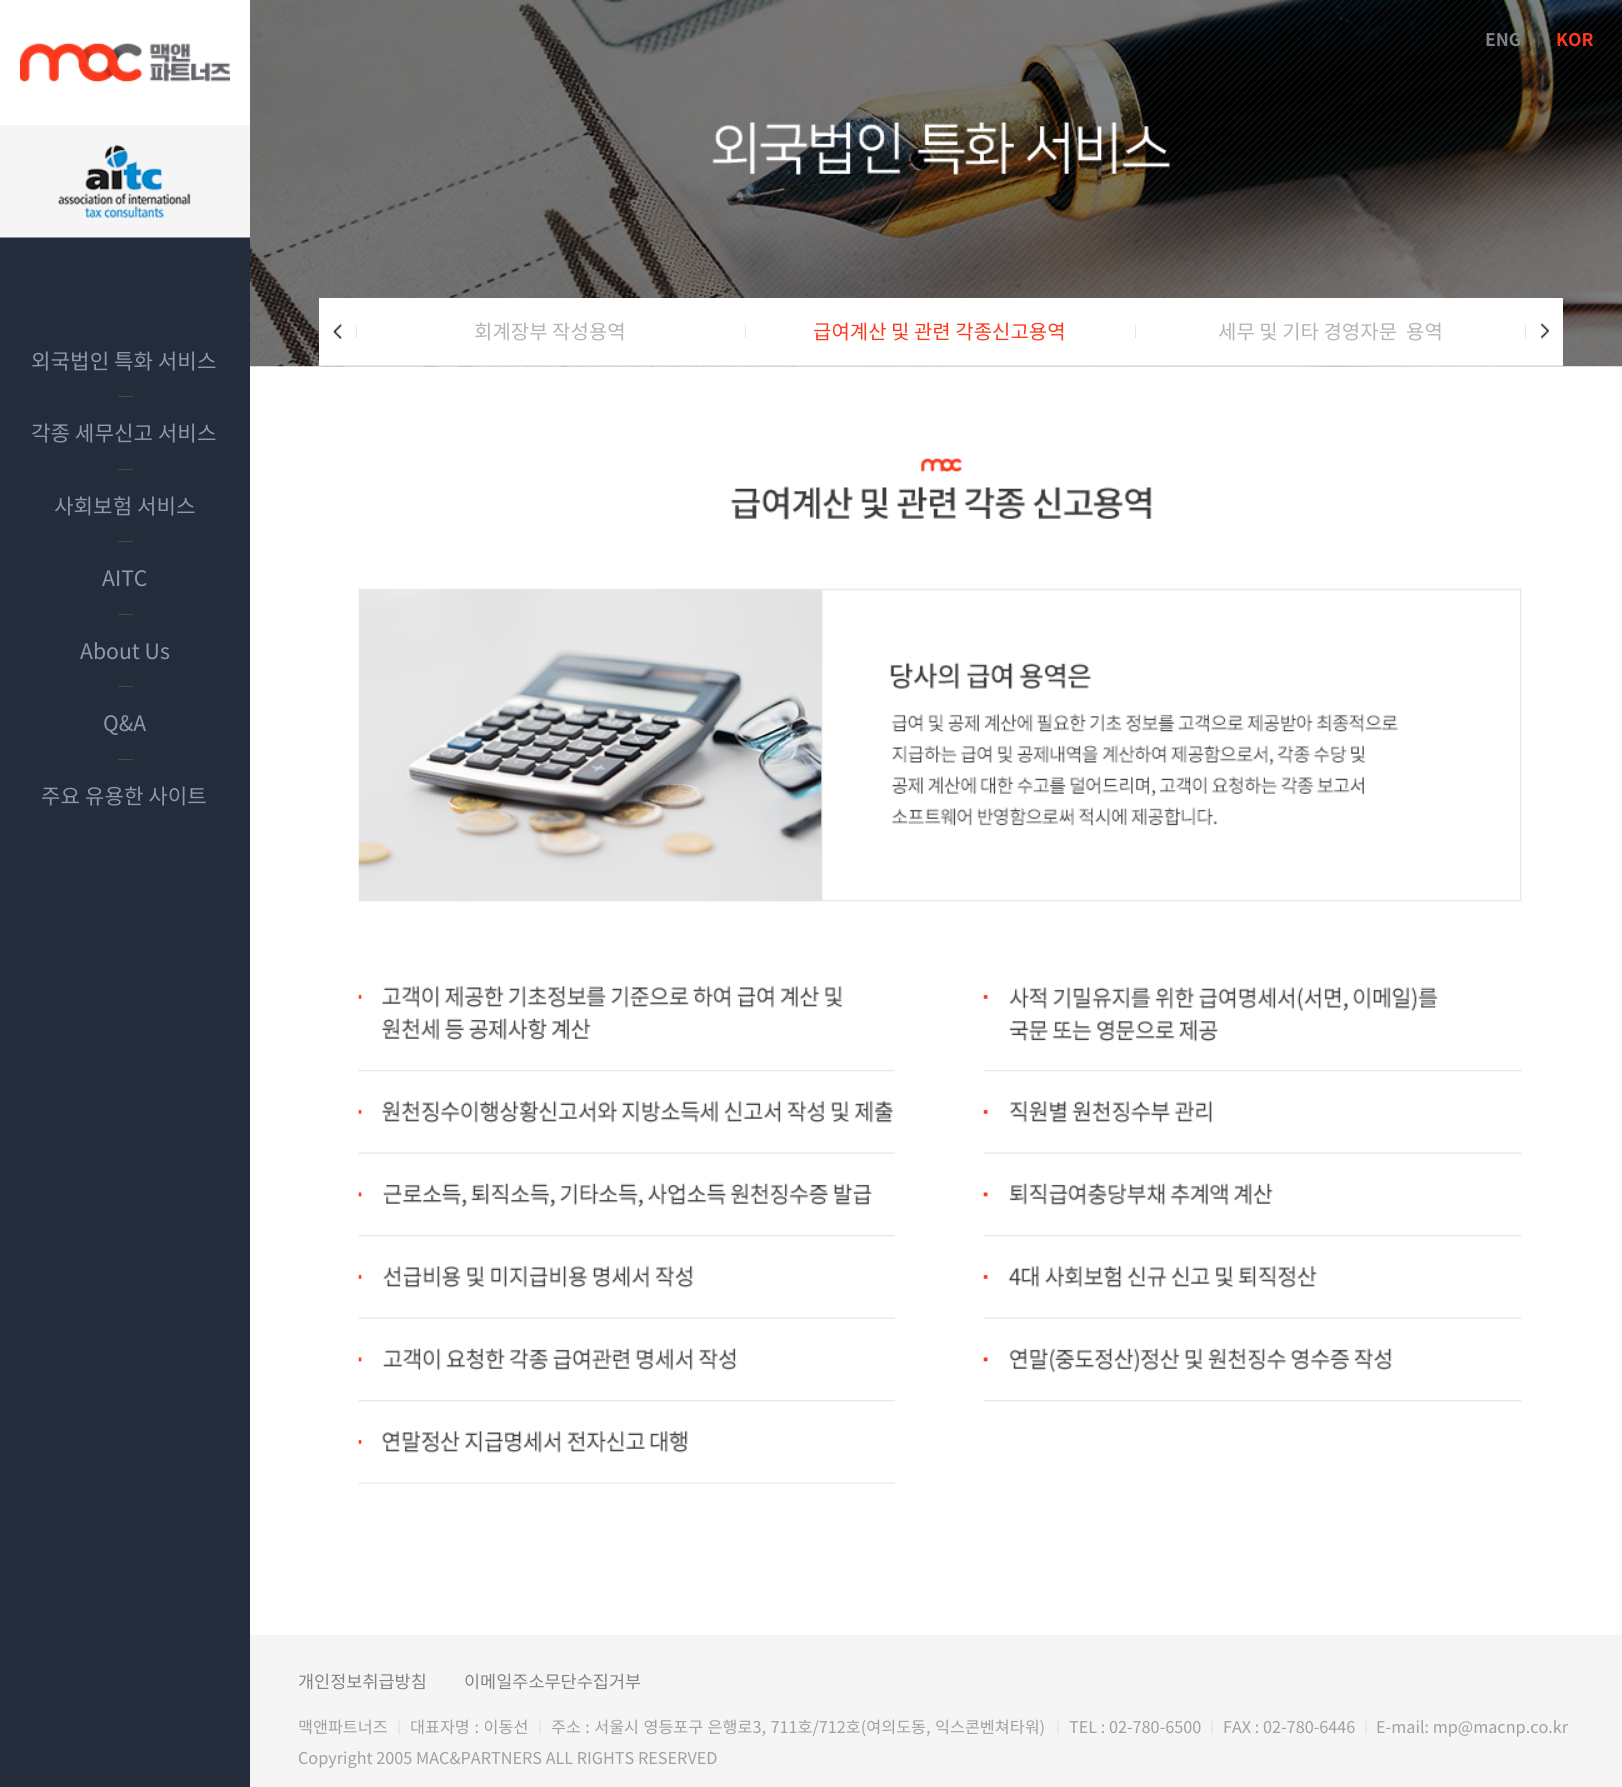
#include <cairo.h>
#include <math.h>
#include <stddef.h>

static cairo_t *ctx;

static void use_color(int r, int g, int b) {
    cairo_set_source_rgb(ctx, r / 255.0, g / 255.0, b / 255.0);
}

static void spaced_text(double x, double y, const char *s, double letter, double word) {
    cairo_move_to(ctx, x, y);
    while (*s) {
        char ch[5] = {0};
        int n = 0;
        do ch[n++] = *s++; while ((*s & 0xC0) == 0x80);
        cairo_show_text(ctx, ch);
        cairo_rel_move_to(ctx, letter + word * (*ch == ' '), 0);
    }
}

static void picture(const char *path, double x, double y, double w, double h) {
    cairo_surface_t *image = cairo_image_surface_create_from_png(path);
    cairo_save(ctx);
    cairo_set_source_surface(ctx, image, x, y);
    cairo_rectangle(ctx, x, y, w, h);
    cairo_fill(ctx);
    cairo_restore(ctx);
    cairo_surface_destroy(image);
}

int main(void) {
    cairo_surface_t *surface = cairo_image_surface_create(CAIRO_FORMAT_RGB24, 1622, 1787);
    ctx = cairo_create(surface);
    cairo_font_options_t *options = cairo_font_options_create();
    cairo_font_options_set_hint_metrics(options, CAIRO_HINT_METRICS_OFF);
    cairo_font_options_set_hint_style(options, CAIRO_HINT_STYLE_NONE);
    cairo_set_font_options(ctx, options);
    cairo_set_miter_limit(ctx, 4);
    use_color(255, 255, 255);
    cairo_paint(ctx);
    picture("img3.png", 250, 0, 1372, 367);
    cairo_select_font_face(ctx, "Noto Sans KR", CAIRO_FONT_SLANT_NORMAL, CAIRO_FONT_WEIGHT_BOLD);
    cairo_set_font_size(ctx, 17.5);
    use_color(127, 130, 137);
    cairo_move_to(ctx, 1485, 46);
    cairo_show_text(ctx, "ENG");
    cairo_select_font_face(ctx, "Noto Sans KR", CAIRO_FONT_SLANT_NORMAL, CAIRO_FONT_WEIGHT_NORMAL);
    cairo_set_font_size(ctx, 15);
    use_color(79, 86, 98);
    cairo_move_to(ctx, 1531, 46);
    cairo_show_text(ctx, "│");
    cairo_select_font_face(ctx, "Noto Sans KR", CAIRO_FONT_SLANT_NORMAL, CAIRO_FONT_WEIGHT_BOLD);
    cairo_set_font_size(ctx, 17.5);
    use_color(252, 57, 29);
    cairo_move_to(ctx, 1556, 46);
    cairo_show_text(ctx, "KOR");
    use_color(35, 44, 59);
    cairo_rectangle(ctx, 0, 237, 250, 1550);
    cairo_fill(ctx);
    picture("img1.png", 20, 43, 210, 39);
    picture("img2.png", 0, 125, 250, 113);
    cairo_select_font_face(ctx, "Noto Sans KR", CAIRO_FONT_SLANT_NORMAL, CAIRO_FONT_WEIGHT_NORMAL);
    cairo_set_font_size(ctx, 21.25);
    use_color(140, 152, 171);
    cairo_move_to(ctx, 31, 369);
    cairo_show_text(ctx, "외국법인 특화 서비스");
    use_color(64, 72, 84);
    cairo_rectangle(ctx, 118, 396, 15, 1);
    cairo_fill(ctx);
    use_color(140, 152, 171);
    cairo_move_to(ctx, 31, 441);
    cairo_show_text(ctx, "각종 세무신고 서비스");
    use_color(64, 72, 84);
    cairo_rectangle(ctx, 118, 469, 15, 1);
    cairo_fill(ctx);
    use_color(140, 152, 171);
    cairo_move_to(ctx, 54, 514);
    cairo_show_text(ctx, "사회보험 서비스");
    use_color(64, 72, 84);
    cairo_rectangle(ctx, 118, 541, 15, 1);
    cairo_fill(ctx);
    use_color(140, 152, 171);
    cairo_move_to(ctx, 102, 586);
    cairo_show_text(ctx, "AITC");
    use_color(64, 72, 84);
    cairo_rectangle(ctx, 118, 614, 15, 1);
    cairo_fill(ctx);
    use_color(140, 152, 171);
    cairo_move_to(ctx, 80, 659);
    cairo_show_text(ctx, "About Us");
    use_color(64, 72, 84);
    cairo_rectangle(ctx, 118, 686, 15, 1);
    cairo_fill(ctx);
    use_color(140, 152, 171);
    cairo_move_to(ctx, 103, 731);
    cairo_show_text(ctx, "Q&A");
    use_color(64, 72, 84);
    cairo_rectangle(ctx, 118, 759, 15, 1);
    cairo_fill(ctx);
    use_color(140, 152, 171);
    cairo_move_to(ctx, 41, 804);
    cairo_show_text(ctx, "주요 유용한 사이트");
    picture("img4.png", 712, 122, 458, 53);
    use_color(255, 255, 255);
    cairo_rectangle(ctx, 319, 298, 1244, 67);
    cairo_fill(ctx);
    use_color(230, 230, 230);
    cairo_rectangle(ctx, 319, 365, 1244, 1);
    cairo_fill(ctx);
    picture("img5.png", 333, 323, 9, 16);
    cairo_rectangle(ctx, 356, 325, 1, 13);
    cairo_fill(ctx);
    cairo_set_font_size(ctx, 20);
    use_color(180, 180, 180);
    cairo_move_to(ctx, 474, 339);
    cairo_show_text(ctx, "회계장부 작성용역");
    use_color(230, 230, 230);
    cairo_rectangle(ctx, 745, 325, 1, 13);
    cairo_fill(ctx);
    use_color(252, 57, 29);
    cairo_move_to(ctx, 813, 339);
    cairo_show_text(ctx, "급여계산 및 관련 각종신고용역");
    use_color(230, 230, 230);
    cairo_rectangle(ctx, 1135, 325, 1, 13);
    cairo_fill(ctx);
    use_color(180, 180, 180);
    cairo_move_to(ctx, 1218, 339);
    cairo_show_text(ctx, "세무 및 기타 경영자문");
    cairo_move_to(ctx, 1406, 339);
    cairo_show_text(ctx, "용역");
    use_color(230, 230, 230);
    cairo_rectangle(ctx, 1525, 325, 1, 13);
    cairo_fill(ctx);
    picture("img6.png", 1541, 323, 8, 16);
    picture("img7.png", 731, 458, 421, 62);
    picture("img8.png", 358, 588, 1164, 896);
    use_color(245, 245, 245);
    cairo_rectangle(ctx, 250, 1635, 1372, 152);
    cairo_fill(ctx);
    cairo_set_font_size(ctx, 17.5);
    use_color(130, 130, 130);
    cairo_move_to(ctx, 298, 1688);
    cairo_show_text(ctx, "개인정보취급방침");
    cairo_move_to(ctx, 464, 1688);
    cairo_show_text(ctx, "이메일주소무단수집거부");
    cairo_set_font_size(ctx, 16.25);
    use_color(160, 160, 160);
    cairo_move_to(ctx, 298, 1733);
    cairo_show_text(ctx, "맥앤파트너즈");
    cairo_set_font_size(ctx, 14);
    use_color(200, 200, 200);
    cairo_move_to(ctx, 392, 1733);
    cairo_show_text(ctx, "│");
    cairo_set_font_size(ctx, 16.25);
    use_color(160, 160, 160);
    spaced_text(410, 1733, "대표자명 : 이동선", 0, 1);
    cairo_set_font_size(ctx, 14);
    use_color(200, 200, 200);
    cairo_move_to(ctx, 533, 1733);
    cairo_show_text(ctx, "│");
    cairo_set_font_size(ctx, 16.25);
    use_color(160, 160, 160);
    spaced_text(551, 1733, "주소 : 서울시 영등포구 은행로3, 711호/712호(여의도동, 익스콘벤쳐타워)", 0, 0.75);
    cairo_set_font_size(ctx, 14);
    use_color(200, 200, 200);
    cairo_move_to(ctx, 1051, 1733);
    cairo_show_text(ctx, "│");
    cairo_set_font_size(ctx, 16.25);
    use_color(160, 160, 160);
    cairo_move_to(ctx, 1069, 1733);
    cairo_show_text(ctx, "TEL : 02-780-6500");
    cairo_set_font_size(ctx, 14);
    use_color(200, 200, 200);
    cairo_move_to(ctx, 1205, 1733);
    cairo_show_text(ctx, "│");
    cairo_set_font_size(ctx, 16.25);
    use_color(160, 160, 160);
    cairo_move_to(ctx, 1223, 1733);
    cairo_show_text(ctx, "FAX : 02-780-6446");
    cairo_set_font_size(ctx, 14);
    use_color(200, 200, 200);
    cairo_move_to(ctx, 1359, 1733);
    cairo_show_text(ctx, "│");
    cairo_set_font_size(ctx, 16.25);
    use_color(160, 160, 160);
    cairo_move_to(ctx, 1376, 1733);
    cairo_show_text(ctx, "E-mail: mp@macnp.co.kr");
    cairo_move_to(ctx, 298, 1764);
    cairo_show_text(ctx, "Copyright 2005 MAC&PARTNERS ALL RIGHTS RESERVED");
    cairo_surface_write_to_png(surface, "result.png");
    cairo_font_options_destroy(options);
    cairo_destroy(ctx);
    cairo_surface_destroy(surface);
    return 0;
}
